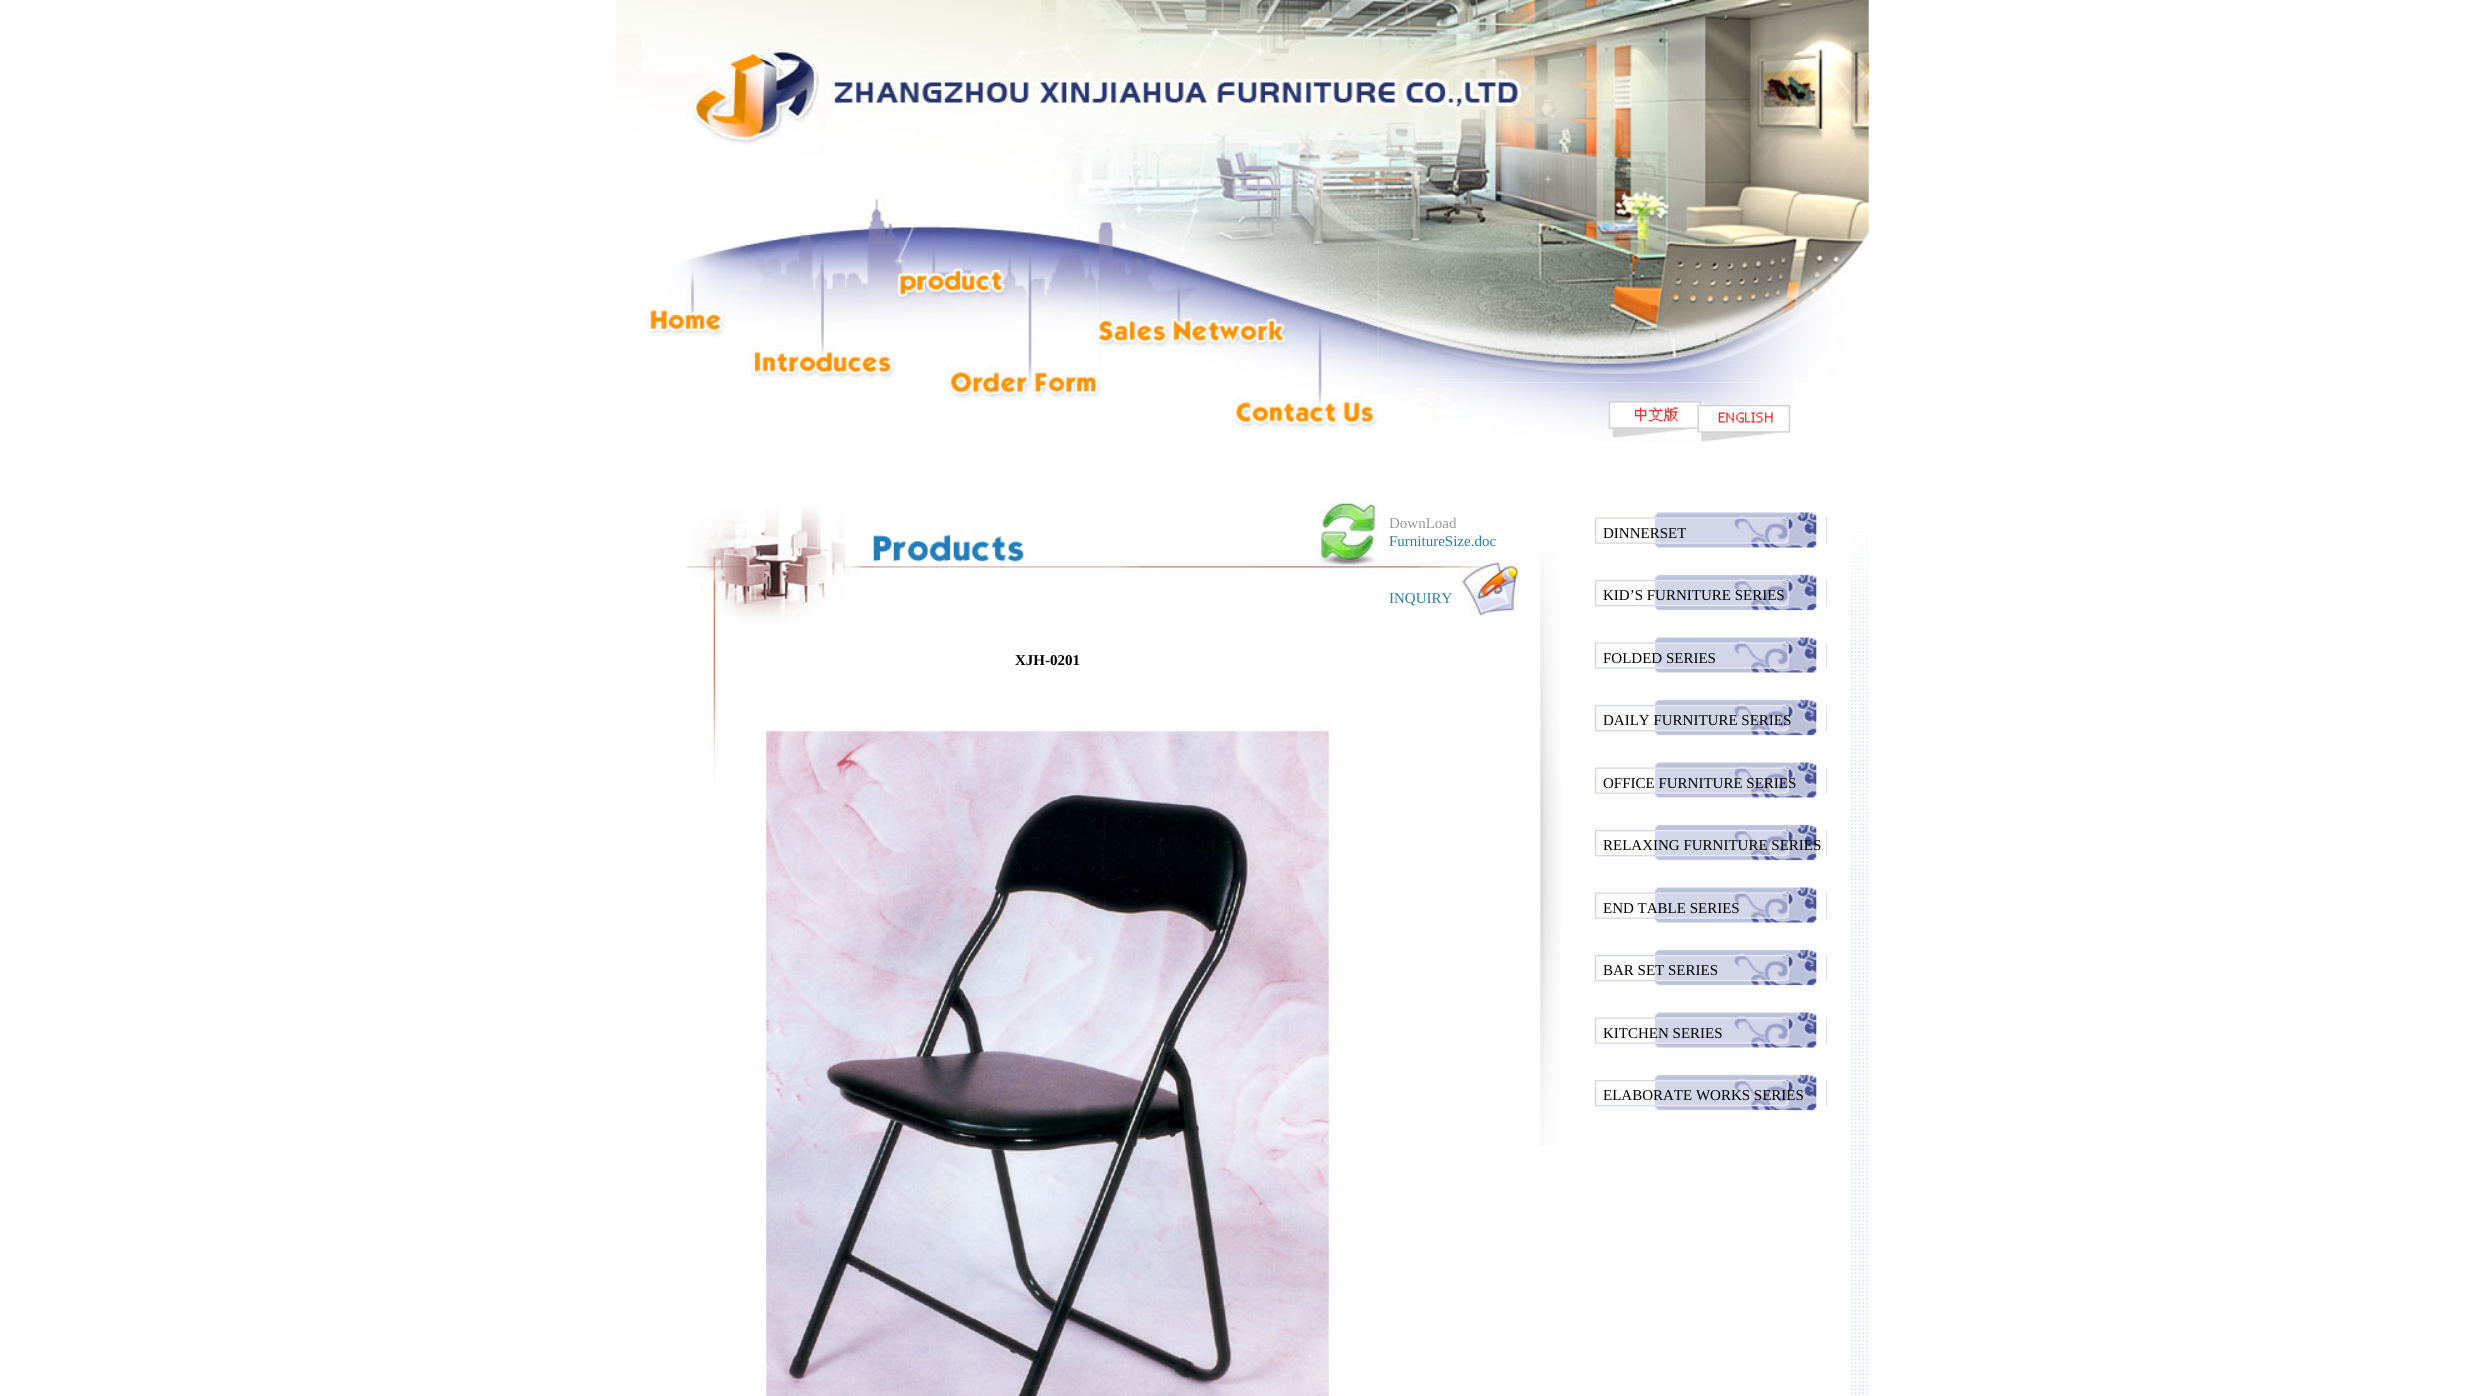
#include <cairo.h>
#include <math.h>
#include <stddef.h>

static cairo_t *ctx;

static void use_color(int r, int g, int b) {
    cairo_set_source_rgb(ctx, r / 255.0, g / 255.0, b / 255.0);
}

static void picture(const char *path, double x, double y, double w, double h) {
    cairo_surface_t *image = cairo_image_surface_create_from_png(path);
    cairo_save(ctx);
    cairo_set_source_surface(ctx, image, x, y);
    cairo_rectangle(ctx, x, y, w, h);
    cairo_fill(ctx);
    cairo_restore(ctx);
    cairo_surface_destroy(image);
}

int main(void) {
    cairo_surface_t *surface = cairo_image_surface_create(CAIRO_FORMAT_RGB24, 2484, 1396);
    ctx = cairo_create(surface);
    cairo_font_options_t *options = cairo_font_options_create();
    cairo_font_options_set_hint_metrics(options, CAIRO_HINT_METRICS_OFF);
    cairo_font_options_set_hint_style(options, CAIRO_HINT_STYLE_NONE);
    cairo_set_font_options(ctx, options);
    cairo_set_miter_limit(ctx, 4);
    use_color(255, 255, 255);
    cairo_paint(ctx);
    picture("img1.png", 616, 0, 1253, 245);
    picture("img3.png", 1378, 245, 491, 138);
    picture("img2.png", 646, 245, 733, 183);
    picture("img4.png", 1379, 382, 113, 40);
    picture("img5.png", 1491, 382, 303, 60);
    picture("img6.png", 686, 505, 159, 140);
    picture("img8.png", 1258, 499, 261, 120);
    picture("img7.png", 845, 534, 414, 43);
    cairo_select_font_face(ctx, "Liberation Serif", CAIRO_FONT_SLANT_NORMAL, CAIRO_FONT_WEIGHT_NORMAL);
    cairo_set_font_size(ctx, 15);
    use_color(153, 153, 153);
    cairo_move_to(ctx, 1389, 528);
    cairo_show_text(ctx, "DownLoad");
    use_color(41, 124, 165);
    cairo_move_to(ctx, 1389, 546);
    cairo_show_text(ctx, "FurnitureSize.doc");
    cairo_move_to(ctx, 1389, 603);
    cairo_show_text(ctx, "INQUIRY");
    picture("img9.png", 713, 645, 3, 138);
    cairo_select_font_face(ctx, "Liberation Serif", CAIRO_FONT_SLANT_NORMAL, CAIRO_FONT_WEIGHT_BOLD);
    use_color(0, 0, 0);
    cairo_move_to(ctx, 1015, 665);
    cairo_show_text(ctx, "XJH-0201");
    picture("img10.png", 766, 731, 563, 665);
    picture("img11.png", 1540, 552, 21, 594);
    picture("img12.png", 1594, 512, 234, 36);
    cairo_select_font_face(ctx, "Liberation Serif", CAIRO_FONT_SLANT_NORMAL, CAIRO_FONT_WEIGHT_NORMAL);
    cairo_move_to(ctx, 1603, 538);
    cairo_show_text(ctx, "DINNERSET");
    picture("img13.png", 1594, 574, 234, 37);
    cairo_move_to(ctx, 1603, 600);
    cairo_show_text(ctx, "KID’S FURNITURE SERIES");
    picture("img14.png", 1594, 637, 234, 36);
    cairo_move_to(ctx, 1603, 663);
    cairo_show_text(ctx, "FOLDED SERIES");
    picture("img15.png", 1594, 699, 234, 37);
    cairo_move_to(ctx, 1603, 725);
    cairo_show_text(ctx, "DAILY FURNITURE SERIES");
    picture("img16.png", 1594, 762, 234, 36);
    cairo_move_to(ctx, 1603, 788);
    cairo_show_text(ctx, "OFFICE FURNITURE SERIES");
    picture("img17.png", 1594, 824, 234, 37);
    cairo_move_to(ctx, 1603, 850);
    cairo_show_text(ctx, "RELAXING FURNITURE SERIES");
    picture("img18.png", 1594, 887, 234, 36);
    cairo_move_to(ctx, 1603, 913);
    cairo_show_text(ctx, "END TABLE SERIES");
    picture("img19.png", 1594, 949, 234, 37);
    cairo_move_to(ctx, 1603, 975);
    cairo_show_text(ctx, "BAR SET SERIES");
    picture("img20.png", 1594, 1012, 234, 36);
    cairo_move_to(ctx, 1603, 1038);
    cairo_show_text(ctx, "KITCHEN SERIES");
    picture("img21.png", 1594, 1074, 234, 37);
    cairo_move_to(ctx, 1603, 1100);
    cairo_show_text(ctx, "ELABORATE WORKS SERIES");
    picture("img22.png", 1827, 499, 41, 895);
    cairo_set_source_rgba(ctx, 1, 1, 1, 0.5);
    cairo_rectangle(ctx, 1827, 518, 1, 338);
    cairo_fill(ctx);
    picture("img23.png", 1851, 499, 17, 380);
    cairo_surface_write_to_png(surface, "result.png");
    cairo_font_options_destroy(options);
    cairo_destroy(ctx);
    cairo_surface_destroy(surface);
    return 0;
}
